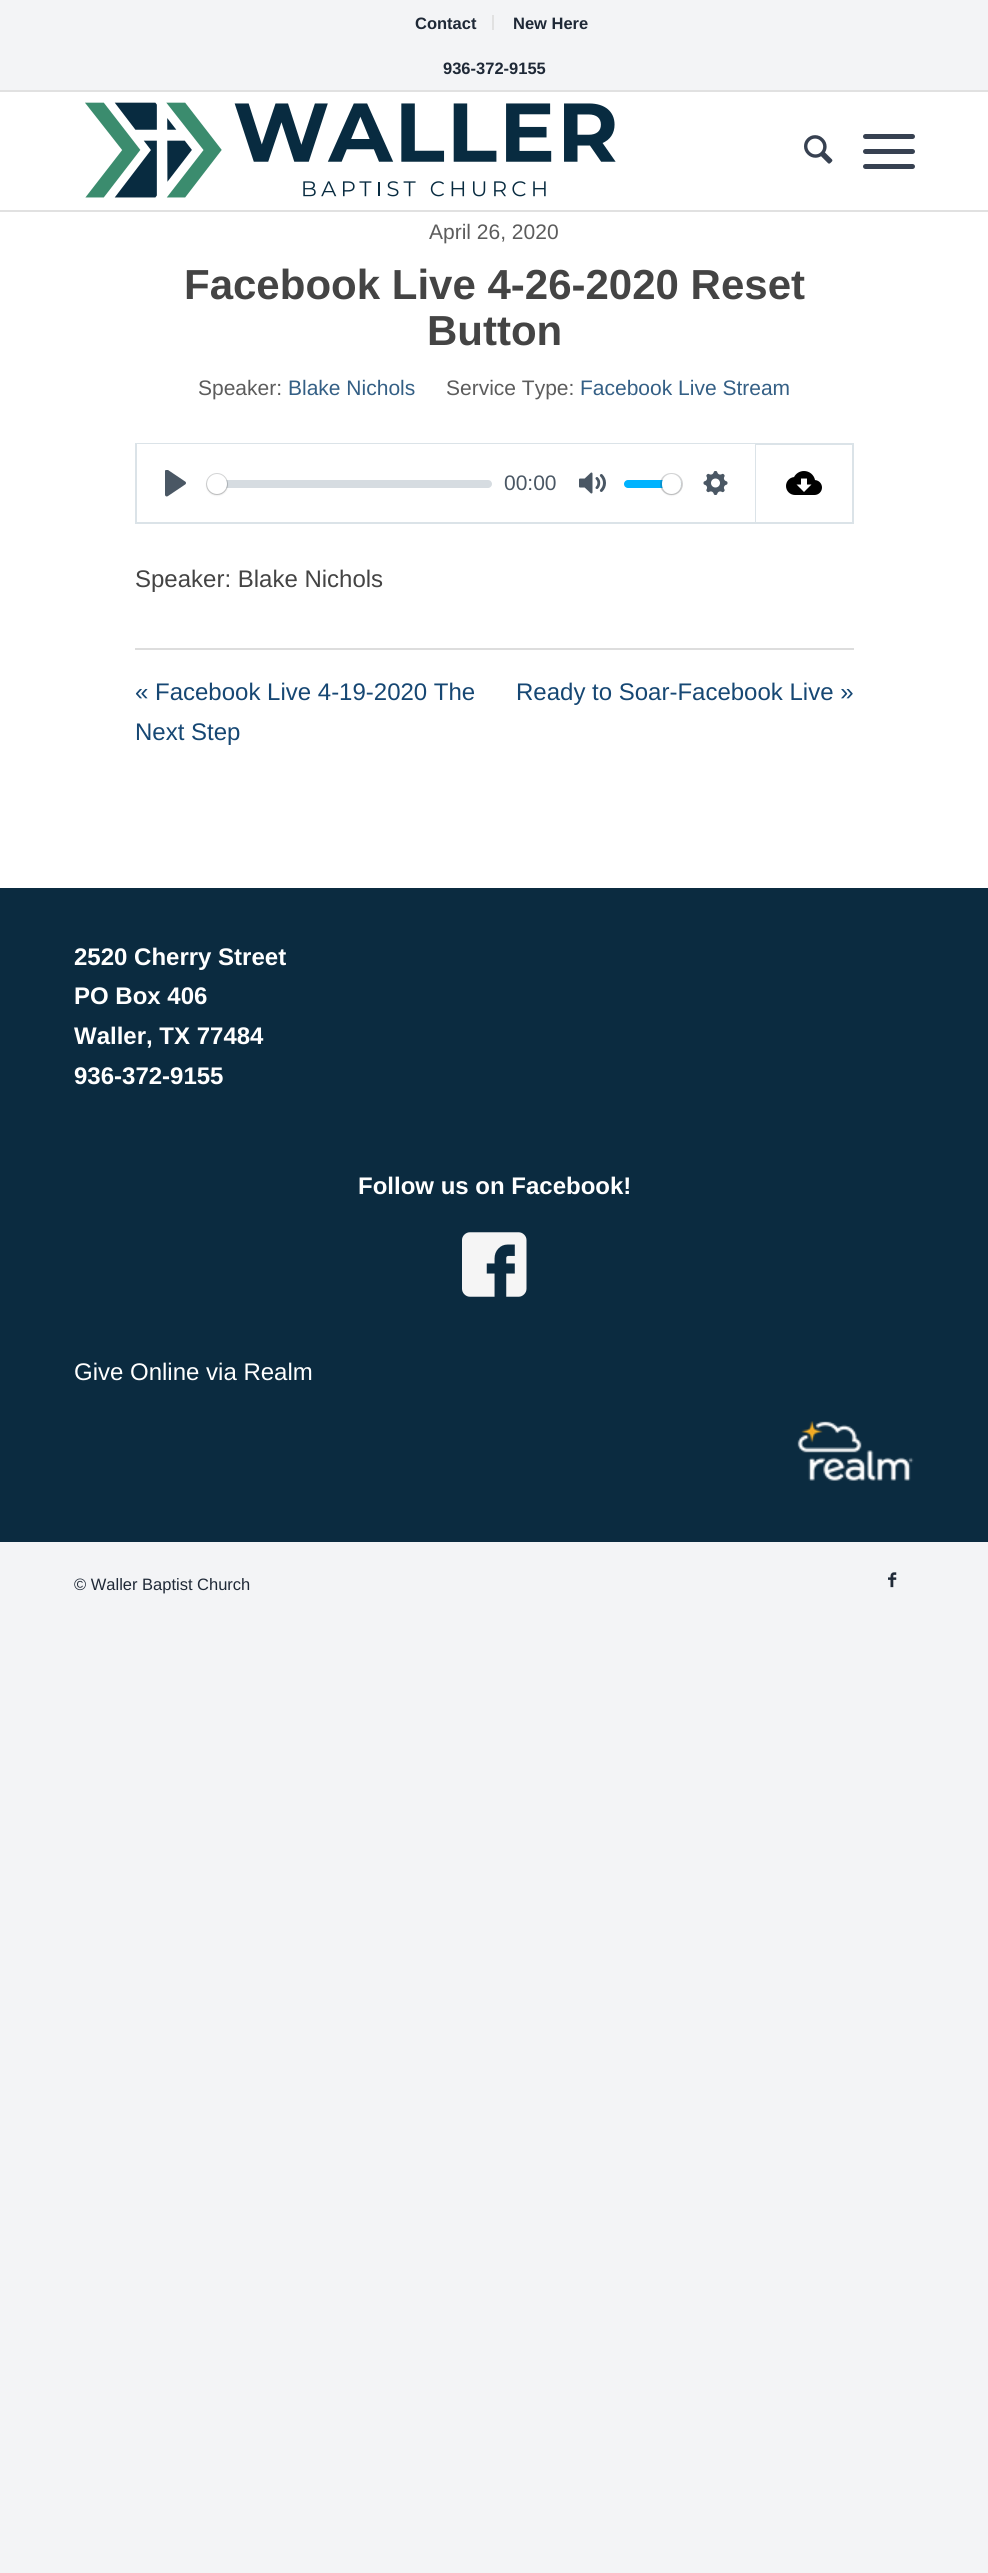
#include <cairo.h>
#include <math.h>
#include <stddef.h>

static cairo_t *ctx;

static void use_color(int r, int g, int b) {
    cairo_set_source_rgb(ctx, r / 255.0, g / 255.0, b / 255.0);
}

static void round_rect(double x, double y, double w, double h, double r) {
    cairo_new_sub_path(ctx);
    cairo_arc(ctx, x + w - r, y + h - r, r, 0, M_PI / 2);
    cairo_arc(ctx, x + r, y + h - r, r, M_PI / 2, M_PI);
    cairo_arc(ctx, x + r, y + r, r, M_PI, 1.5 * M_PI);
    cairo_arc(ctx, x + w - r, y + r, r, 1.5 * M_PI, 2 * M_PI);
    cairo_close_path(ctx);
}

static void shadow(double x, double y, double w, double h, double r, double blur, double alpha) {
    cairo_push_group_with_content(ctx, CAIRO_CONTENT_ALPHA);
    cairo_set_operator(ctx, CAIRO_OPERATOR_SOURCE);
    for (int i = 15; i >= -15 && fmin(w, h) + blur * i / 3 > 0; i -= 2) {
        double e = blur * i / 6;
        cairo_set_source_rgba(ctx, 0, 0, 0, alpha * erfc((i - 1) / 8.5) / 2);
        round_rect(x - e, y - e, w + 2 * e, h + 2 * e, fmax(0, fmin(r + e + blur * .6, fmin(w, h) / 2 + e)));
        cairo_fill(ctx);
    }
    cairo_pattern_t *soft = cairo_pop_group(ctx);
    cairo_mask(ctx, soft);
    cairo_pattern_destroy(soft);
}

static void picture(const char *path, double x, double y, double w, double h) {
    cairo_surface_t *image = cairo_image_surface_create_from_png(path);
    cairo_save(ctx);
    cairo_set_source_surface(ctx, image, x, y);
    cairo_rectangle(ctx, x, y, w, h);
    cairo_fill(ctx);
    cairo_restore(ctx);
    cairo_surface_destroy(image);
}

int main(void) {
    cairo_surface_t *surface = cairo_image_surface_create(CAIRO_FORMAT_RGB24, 988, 2573);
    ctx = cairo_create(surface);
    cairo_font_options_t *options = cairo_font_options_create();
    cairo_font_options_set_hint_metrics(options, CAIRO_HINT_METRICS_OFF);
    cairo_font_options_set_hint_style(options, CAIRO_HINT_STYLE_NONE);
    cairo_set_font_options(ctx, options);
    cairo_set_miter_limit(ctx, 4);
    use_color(243, 244, 246);
    cairo_paint(ctx);
    use_color(255, 255, 255);
    cairo_rectangle(ctx, 0, 92, 988, 796);
    cairo_fill(ctx);
    use_color(225, 225, 225);
    cairo_rectangle(ctx, 0, 90, 988, 2);
    cairo_fill(ctx);
    cairo_rectangle(ctx, 492, 15, 2, 15);
    cairo_fill(ctx);
    cairo_select_font_face(ctx, "Liberation Sans", CAIRO_FONT_SLANT_NORMAL, CAIRO_FONT_WEIGHT_BOLD);
    cairo_set_font_size(ctx, 16.5);
    use_color(31, 41, 55);
    cairo_move_to(ctx, 415, 29);
    cairo_show_text(ctx, "Contact");
    cairo_move_to(ctx, 513, 29);
    cairo_show_text(ctx, "New Here");
    cairo_move_to(ctx, 443, 74);
    cairo_show_text(ctx, "936-372-9155");
    use_color(225, 225, 225);
    cairo_rectangle(ctx, 0, 210, 988, 2);
    cairo_fill(ctx);
    picture("img1.png", 85, 102, 531, 96);
    picture("img2.png", 804, 135, 29, 29);
    use_color(55, 65, 81);
    round_rect(863, 149, 52, 5, 2.5);
    cairo_fill(ctx);
    round_rect(863, 134, 52, 5, 2.5);
    cairo_fill(ctx);
    round_rect(863, 164, 52, 5, 2.5);
    cairo_fill(ctx);
    cairo_select_font_face(ctx, "Liberation Sans", CAIRO_FONT_SLANT_NORMAL, CAIRO_FONT_WEIGHT_NORMAL);
    cairo_set_font_size(ctx, 21);
    use_color(92, 92, 92);
    cairo_move_to(ctx, 429, 239);
    cairo_show_text(ctx, "April 26, 2020");
    cairo_select_font_face(ctx, "Liberation Sans", CAIRO_FONT_SLANT_NORMAL, CAIRO_FONT_WEIGHT_BOLD);
    cairo_set_font_size(ctx, 42);
    use_color(68, 68, 68);
    cairo_move_to(ctx, 184, 299);
    cairo_show_text(ctx, "Facebook Live 4-26-2020 Reset");
    cairo_move_to(ctx, 427, 345);
    cairo_show_text(ctx, "Button");
    cairo_select_font_face(ctx, "Liberation Sans", CAIRO_FONT_SLANT_NORMAL, CAIRO_FONT_WEIGHT_NORMAL);
    cairo_set_font_size(ctx, 21);
    use_color(92, 92, 92);
    cairo_move_to(ctx, 198, 395);
    cairo_show_text(ctx, "Speaker:");
    use_color(52, 95, 133);
    cairo_move_to(ctx, 288, 395);
    cairo_show_text(ctx, "Blake Nichols");
    use_color(92, 92, 92);
    cairo_move_to(ctx, 446, 395);
    cairo_show_text(ctx, "Service Type:");
    use_color(52, 95, 133);
    cairo_move_to(ctx, 580, 395);
    cairo_show_text(ctx, "Facebook Live Stream");
    cairo_rectangle(ctx, 136, 444, 619, 79);
    use_color(219, 227, 232);
    cairo_stroke(ctx);
    use_color(255, 255, 255);
    cairo_rectangle(ctx, 137, 444, 618, 78);
    cairo_fill(ctx);
    picture("img3.png", 165, 470, 21, 27);
    cairo_set_source_rgba(ctx, 0.757, 0.788, 0.82, 0.66);
    round_rect(207, 480, 285, 8, 4);
    cairo_fill(ctx);
    cairo_arc(ctx, 217, 484, 10, 0, 2 * M_PI);
    cairo_set_source_rgba(ctx, 0.137, 0.161, 0.184, 0.2);
    cairo_stroke(ctx);
    use_color(0, 0, 0);
    shadow(207, 476, 20, 19, 9.5, 1, 0.15);
    use_color(255, 255, 255);
    cairo_arc(ctx, 217, 484, 10, 0, 2 * M_PI);
    cairo_fill(ctx);
    use_color(74, 87, 100);
    cairo_move_to(ctx, 504, 490);
    cairo_show_text(ctx, "00:00");
    picture("img4.png", 579, 472, 27, 22);
    use_color(0, 179, 255);
    round_rect(624, 480, 57, 8, 4);
    cairo_fill(ctx);
    round_rect(661, 474, 21, 20, 10);
    cairo_set_source_rgba(ctx, 0.137, 0.161, 0.184, 0.2);
    cairo_stroke(ctx);
    use_color(0, 0, 0);
    shadow(662, 476, 19, 19, 9.5, 1, 0.15);
    use_color(255, 255, 255);
    round_rect(662, 474, 19, 20, 9.5);
    cairo_fill(ctx);
    picture("img5.png", 703, 471, 25, 24);
    use_color(219, 227, 232);
    cairo_rectangle(ctx, 756, 443, 98, 2);
    cairo_fill(ctx);
    cairo_rectangle(ctx, 852, 443, 2, 81);
    cairo_fill(ctx);
    cairo_rectangle(ctx, 756, 522, 98, 2);
    cairo_fill(ctx);
    picture("img6.png", 786, 471, 36, 24);
    cairo_set_font_size(ctx, 24);
    use_color(68, 68, 68);
    cairo_move_to(ctx, 135, 587);
    cairo_show_text(ctx, "Speaker: Blake Nichols");
    use_color(221, 221, 221);
    cairo_rectangle(ctx, 135, 648, 719, 2);
    cairo_fill(ctx);
    use_color(22, 71, 115);
    cairo_move_to(ctx, 135, 700);
    cairo_show_text(ctx, "« Facebook Live 4-19-2020 The");
    cairo_move_to(ctx, 135, 740);
    cairo_show_text(ctx, "Next Step");
    cairo_move_to(ctx, 516, 700);
    cairo_show_text(ctx, "Ready to Soar-Facebook Live »");
    use_color(11, 43, 64);
    cairo_rectangle(ctx, 0, 888, 988, 654);
    cairo_fill(ctx);
    cairo_select_font_face(ctx, "Liberation Sans", CAIRO_FONT_SLANT_NORMAL, CAIRO_FONT_WEIGHT_BOLD);
    use_color(255, 255, 255);
    cairo_move_to(ctx, 74, 965);
    cairo_show_text(ctx, "2520 Cherry Street");
    cairo_move_to(ctx, 74, 1004);
    cairo_show_text(ctx, "PO Box 406");
    cairo_move_to(ctx, 74, 1044);
    cairo_show_text(ctx, "Waller, TX 77484");
    cairo_move_to(ctx, 74, 1084);
    cairo_show_text(ctx, "936-372-9155");
    cairo_move_to(ctx, 358, 1194);
    cairo_show_text(ctx, "Follow us on Facebook!");
    picture("img7.png", 462, 1232, 65, 65);
    cairo_select_font_face(ctx, "Liberation Sans", CAIRO_FONT_SLANT_NORMAL, CAIRO_FONT_WEIGHT_NORMAL);
    cairo_move_to(ctx, 74, 1380);
    cairo_show_text(ctx, "Give Online via Realm");
    picture("img8.png", 797, 1421, 117, 60);
    cairo_set_font_size(ctx, 16.5);
    use_color(31, 41, 55);
    cairo_move_to(ctx, 74, 1590);
    cairo_show_text(ctx, "© Waller Baptist Church");
    picture("img9.png", 888, 1572, 9, 16);
    cairo_surface_write_to_png(surface, "result.png");
    cairo_font_options_destroy(options);
    cairo_destroy(ctx);
    cairo_surface_destroy(surface);
    return 0;
}
